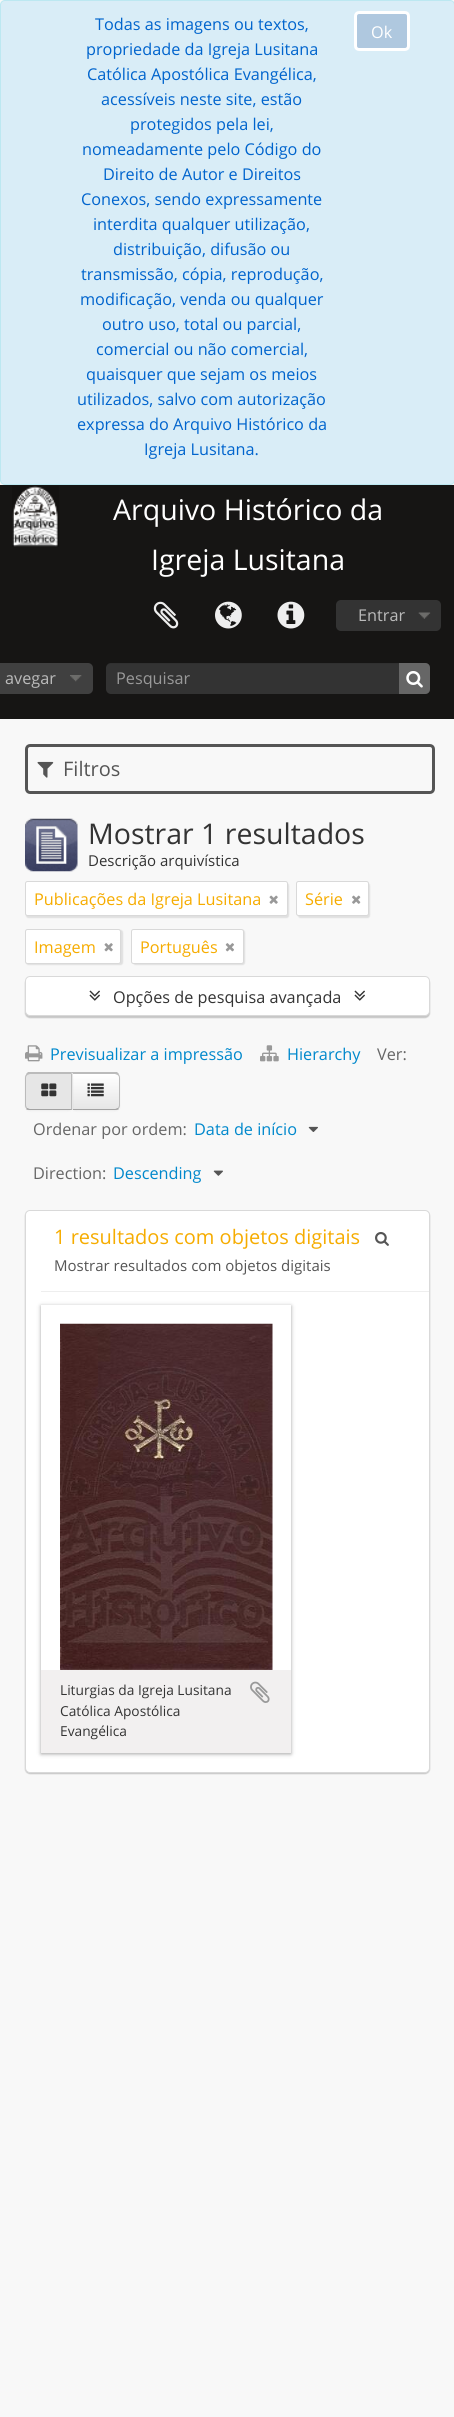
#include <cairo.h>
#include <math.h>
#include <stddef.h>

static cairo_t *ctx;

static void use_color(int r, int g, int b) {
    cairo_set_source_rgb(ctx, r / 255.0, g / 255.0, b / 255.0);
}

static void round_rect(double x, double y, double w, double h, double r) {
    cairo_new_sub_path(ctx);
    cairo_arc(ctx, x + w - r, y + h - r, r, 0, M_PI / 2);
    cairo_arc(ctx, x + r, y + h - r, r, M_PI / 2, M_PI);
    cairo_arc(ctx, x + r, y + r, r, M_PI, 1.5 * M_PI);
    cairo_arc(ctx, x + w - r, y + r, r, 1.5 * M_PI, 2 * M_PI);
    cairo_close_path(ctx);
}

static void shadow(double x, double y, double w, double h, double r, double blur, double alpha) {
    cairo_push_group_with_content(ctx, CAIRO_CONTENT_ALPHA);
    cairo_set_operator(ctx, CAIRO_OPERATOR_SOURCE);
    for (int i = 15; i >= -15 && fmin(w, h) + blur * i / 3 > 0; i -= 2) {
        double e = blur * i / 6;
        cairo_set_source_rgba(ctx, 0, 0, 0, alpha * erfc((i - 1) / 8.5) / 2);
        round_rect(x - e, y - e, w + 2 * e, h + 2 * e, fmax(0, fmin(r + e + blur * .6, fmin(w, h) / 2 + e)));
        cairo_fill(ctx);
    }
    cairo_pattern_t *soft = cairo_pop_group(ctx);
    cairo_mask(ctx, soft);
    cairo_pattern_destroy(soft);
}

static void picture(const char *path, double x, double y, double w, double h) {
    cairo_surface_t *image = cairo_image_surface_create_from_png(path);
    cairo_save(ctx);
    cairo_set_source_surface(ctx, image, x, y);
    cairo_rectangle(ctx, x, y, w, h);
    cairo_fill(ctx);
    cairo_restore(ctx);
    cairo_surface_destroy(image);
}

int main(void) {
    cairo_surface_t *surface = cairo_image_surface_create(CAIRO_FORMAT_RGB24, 454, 2417);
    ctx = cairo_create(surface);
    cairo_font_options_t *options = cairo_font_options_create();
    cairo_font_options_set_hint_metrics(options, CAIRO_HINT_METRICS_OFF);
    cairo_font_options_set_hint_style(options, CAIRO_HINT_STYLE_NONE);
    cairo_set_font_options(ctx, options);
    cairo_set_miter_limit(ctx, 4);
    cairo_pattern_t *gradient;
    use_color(248, 248, 248);
    cairo_paint(ctx);
    use_color(217, 237, 247);
    round_rect(0.5, 0.5, 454, 484, 4.5);
    cairo_fill_preserve(ctx);
    use_color(188, 232, 241);
    cairo_set_line_width(ctx, 1);
    cairo_stroke(ctx);
    cairo_select_font_face(ctx, "Open Sans", CAIRO_FONT_SLANT_NORMAL, CAIRO_FONT_WEIGHT_NORMAL);
    cairo_set_font_size(ctx, 16.25);
    use_color(0, 100, 205);
    cairo_move_to(ctx, 95, 30);
    cairo_show_text(ctx, "Todas as imagens ou textos,");
    cairo_move_to(ctx, 86, 55);
    cairo_show_text(ctx, "propriedade da Igreja Lusitana");
    cairo_move_to(ctx, 87, 80);
    cairo_show_text(ctx, "Católica Apostólica Evangélica,");
    cairo_move_to(ctx, 101, 105);
    cairo_show_text(ctx, "acessíveis neste site, estão");
    cairo_move_to(ctx, 130, 130);
    cairo_show_text(ctx, "protegidos pela lei,");
    cairo_move_to(ctx, 82, 155);
    cairo_show_text(ctx, "nomeadamente pelo Código do");
    cairo_move_to(ctx, 103, 180);
    cairo_show_text(ctx, "Direito de Autor e Direitos");
    cairo_move_to(ctx, 81, 205);
    cairo_show_text(ctx, "Conexos, sendo expressamente");
    cairo_move_to(ctx, 93, 230);
    cairo_show_text(ctx, "interdita qualquer utilização,");
    cairo_move_to(ctx, 113, 255);
    cairo_show_text(ctx, "distribuição, difusão ou");
    cairo_move_to(ctx, 81, 280);
    cairo_show_text(ctx, "transmissão, cópia, reprodução,");
    cairo_move_to(ctx, 80, 305);
    cairo_show_text(ctx, "modificação, venda ou qualquer");
    cairo_move_to(ctx, 102, 330);
    cairo_show_text(ctx, "outro uso, total ou parcial,");
    cairo_move_to(ctx, 96, 355);
    cairo_show_text(ctx, "comercial ou não comercial,");
    cairo_move_to(ctx, 86, 380);
    cairo_show_text(ctx, "quaisquer que sejam os meios");
    cairo_move_to(ctx, 77, 405);
    cairo_show_text(ctx, "utilizados, salvo com autorização");
    cairo_move_to(ctx, 77, 430);
    cairo_show_text(ctx, "expressa do Arquivo Histórico da");
    cairo_move_to(ctx, 144, 455);
    cairo_show_text(ctx, "Igreja Lusitana.");
    use_color(175, 200, 223);
    round_rect(355.5, 12.5, 53, 37, 3.5);
    cairo_fill_preserve(ctx);
    use_color(255, 255, 255);
    cairo_set_line_width(ctx, 3);
    cairo_stroke(ctx);
    cairo_move_to(ctx, 371, 38);
    cairo_show_text(ctx, "Ok");
    use_color(22, 21, 20);
    cairo_rectangle(ctx, 0, 485, 454, 234);
    cairo_fill(ctx);
    picture("img1.png", 12, 486, 47, 61);
    cairo_set_font_size(ctx, 28.5);
    use_color(255, 255, 255);
    cairo_move_to(ctx, 113, 520);
    cairo_show_text(ctx, "Arquivo Histórico da");
    cairo_move_to(ctx, 151, 570);
    cairo_show_text(ctx, "Igreja Lusitana");
    picture("img2.png", 153, 601, 26, 28);
    picture("img3.png", 215, 601, 27, 28);
    picture("img4.png", 277, 601, 28, 28);
    use_color(51, 51, 51);
    round_rect(336, 600, 105, 31, 5);
    cairo_fill(ctx);
    picture("img5.png", 418, 612, 13, 7);
    cairo_set_font_size(ctx, 16.25);
    use_color(187, 187, 187);
    cairo_move_to(ctx, 358, 621);
    cairo_show_text(ctx, "Entrar");
    use_color(64, 64, 64);
    round_rect(-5, 663, 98, 31, 5);
    cairo_fill(ctx);
    picture("img6.png", 70, 675, 12, 7);
    use_color(187, 187, 187);
    cairo_move_to(ctx, 5, 684);
    cairo_show_text(ctx, "avegar");
    use_color(51, 51, 51);
    round_rect(106, 663, 324, 31, 5);
    cairo_fill(ctx);
    cairo_set_source_rgba(ctx, 0, 0, 0, 0.07);
    cairo_new_path(ctx);
    cairo_move_to(ctx, 111, 664);
    cairo_line_to(ctx, 425, 664);
    cairo_curve_to(ctx, 428, 664, 430, 666, 430, 669);
    cairo_curve_to(ctx, 430, 666, 428, 663, 425, 663);
    cairo_line_to(ctx, 111, 663);
    cairo_curve_to(ctx, 108, 663, 106, 666, 106, 669);
    cairo_curve_to(ctx, 106, 666, 108, 664, 111, 664);
    cairo_close_path(ctx);
    cairo_fill(ctx);
    use_color(153, 153, 153);
    cairo_move_to(ctx, 116, 684);
    cairo_show_text(ctx, "Pesquisar");
    use_color(102, 102, 102);
    cairo_new_path(ctx);
    cairo_move_to(ctx, 399, 663);
    cairo_line_to(ctx, 425, 663);
    cairo_curve_to(ctx, 428, 663, 430, 665, 430, 668);
    cairo_line_to(ctx, 430, 689);
    cairo_curve_to(ctx, 430, 692, 428, 694, 425, 694);
    cairo_line_to(ctx, 399, 694);
    cairo_close_path(ctx);
    cairo_fill(ctx);
    picture("img7.png", 406, 671, 17, 17);
    round_rect(26.5, 745.5, 407, 47, 3.5);
    use_color(85, 85, 85);
    cairo_stroke(ctx);
    picture("img8.png", 37, 761, 17, 17);
    cairo_set_font_size(ctx, 20);
    cairo_move_to(ctx, 63, 776);
    cairo_show_text(ctx, "Filtros");
    picture("img9.png", 25, 818, 53, 54);
    cairo_set_font_size(ctx, 28.5);
    use_color(51, 51, 51);
    cairo_move_to(ctx, 88, 844);
    cairo_show_text(ctx, "Mostrar 1 resultados");
    cairo_set_font_size(ctx, 15);
    cairo_move_to(ctx, 88, 866);
    cairo_show_text(ctx, "Descrição arquivística");
    use_color(0, 0, 0);
    shadow(26, 883, 263, 35, 2.5, 0.5, 0.1);
    use_color(255, 255, 255);
    round_rect(25.5, 881.5, 262, 34, 2);
    cairo_fill_preserve(ctx);
    use_color(217, 217, 217);
    cairo_set_line_width(ctx, 1);
    cairo_stroke(ctx);
    cairo_set_font_size(ctx, 16.25);
    use_color(246, 172, 0);
    cairo_move_to(ctx, 34, 905);
    cairo_show_text(ctx, "Publicações da Igreja Lusitana");
    picture("img10.png", 269, 895, 9, 9);
    use_color(0, 0, 0);
    shadow(298, 883, 72, 35, 2.5, 0.5, 0.1);
    use_color(255, 255, 255);
    round_rect(296.5, 881.5, 72, 34, 2);
    cairo_fill_preserve(ctx);
    use_color(217, 217, 217);
    cairo_stroke(ctx);
    use_color(246, 172, 0);
    cairo_move_to(ctx, 305, 905);
    cairo_show_text(ctx, "Série");
    picture("img11.png", 352, 895, 9, 9);
    use_color(0, 0, 0);
    shadow(26, 930, 97, 35, 2.5, 0.5, 0.1);
    use_color(255, 255, 255);
    round_rect(25.5, 929.5, 95, 34, 2);
    cairo_fill_preserve(ctx);
    use_color(217, 217, 217);
    cairo_stroke(ctx);
    use_color(246, 172, 0);
    cairo_move_to(ctx, 34, 953);
    cairo_show_text(ctx, "Imagem");
    picture("img12.png", 104, 943, 9, 9);
    use_color(0, 0, 0);
    shadow(133, 930, 112, 35, 2.5, 0.5, 0.1);
    use_color(255, 255, 255);
    round_rect(131.5, 929.5, 112, 34, 2);
    cairo_fill_preserve(ctx);
    use_color(217, 217, 217);
    cairo_stroke(ctx);
    use_color(246, 172, 0);
    cairo_move_to(ctx, 140, 953);
    cairo_show_text(ctx, "Português");
    picture("img13.png", 225, 943, 9, 9);
    use_color(0, 0, 0);
    shadow(25, 978, 405, 40, 5, 0.5, 0.2);
    use_color(255, 255, 255);
    round_rect(25.5, 976.5, 404, 39, 4.5);
    cairo_fill_preserve(ctx);
    use_color(217, 217, 217);
    cairo_stroke(ctx);
    picture("img14.png", 89, 990, 11, 11);
    use_color(51, 51, 51);
    cairo_move_to(ctx, 113, 1003);
    cairo_show_text(ctx, "Opções de pesquisa avançada");
    picture("img14.png", 354, 990, 11, 11);
    picture("img15.png", 25, 1045, 18, 17);
    use_color(0, 136, 204);
    cairo_move_to(ctx, 50, 1060);
    cairo_show_text(ctx, "Previsualizar a impressão");
    picture("img16.png", 260, 1045, 19, 17);
    cairo_move_to(ctx, 287, 1060);
    cairo_show_text(ctx, "Hierarchy");
    use_color(102, 102, 102);
    cairo_move_to(ctx, 377, 1060);
    cairo_show_text(ctx, "Ver:");
    use_color(0, 0, 0);
    shadow(71, 1074, 49, 37, 5, 1, 0.05);
    cairo_save(ctx);
    cairo_new_path(ctx);
    cairo_move_to(ctx, 71, 1073);
    cairo_line_to(ctx, 115, 1073);
    cairo_curve_to(ctx, 118, 1073, 120, 1075, 120, 1078);
    cairo_line_to(ctx, 120, 1105);
    cairo_curve_to(ctx, 120, 1108, 118, 1110, 115, 1110);
    cairo_line_to(ctx, 71, 1110);
    cairo_close_path(ctx);
    cairo_clip(ctx);
    gradient = cairo_pattern_create_linear(96, 1074, 96, 1109);
    cairo_pattern_add_color_stop_rgba(gradient, 0, 1, 1, 1, 1);
    cairo_pattern_add_color_stop_rgba(gradient, 1, 0.902, 0.902, 0.902, 1);
    cairo_set_source(ctx, gradient);
    cairo_pattern_destroy(gradient);
    cairo_rectangle(ctx, 73, 1074, 47, 35);
    cairo_fill(ctx);
    cairo_restore(ctx);
    use_color(187, 187, 187);
    cairo_new_path(ctx);
    cairo_move_to(ctx, 71, 1072);
    cairo_line_to(ctx, 117, 1072);
    cairo_line_to(ctx, 119, 1074);
    cairo_line_to(ctx, 118, 1075);
    cairo_line_to(ctx, 115, 1074);
    cairo_line_to(ctx, 73, 1074);
    cairo_close_path(ctx);
    cairo_fill(ctx);
    cairo_new_path(ctx);
    cairo_move_to(ctx, 120, 1105);
    cairo_line_to(ctx, 120, 1078);
    cairo_curve_to(ctx, 120, 1076.5, 119.5, 1075, 118.5, 1074);
    cairo_line_to(ctx, 117.5, 1075);
    cairo_curve_to(ctx, 118.5, 1075.5, 119, 1076.5, 119, 1078);
    cairo_line_to(ctx, 119, 1105);
    cairo_curve_to(ctx, 119, 1106, 118.5, 1107, 118, 1108);
    cairo_line_to(ctx, 118.5, 1108.5);
    cairo_curve_to(ctx, 119.5, 1108, 120, 1106.5, 120, 1105);
    cairo_close_path(ctx);
    cairo_fill(ctx);
    use_color(162, 162, 162);
    cairo_new_path(ctx);
    cairo_move_to(ctx, 71, 1110);
    cairo_line_to(ctx, 115, 1110);
    cairo_curve_to(ctx, 116, 1110, 118, 1110, 119, 1109);
    cairo_line_to(ctx, 118, 1108);
    cairo_curve_to(ctx, 117, 1108, 116, 1109, 115, 1109);
    cairo_line_to(ctx, 72, 1109);
    cairo_close_path(ctx);
    cairo_fill(ctx);
    use_color(0, 0, 0);
    shadow(25, 1074, 48, 37, 5, 1, 0.05);
    use_color(230, 230, 230);
    cairo_new_path(ctx);
    cairo_move_to(ctx, 30, 1073);
    cairo_line_to(ctx, 73, 1073);
    cairo_line_to(ctx, 73, 1110);
    cairo_line_to(ctx, 30, 1110);
    cairo_curve_to(ctx, 27, 1110, 25, 1108, 25, 1105);
    cairo_line_to(ctx, 25, 1078);
    cairo_curve_to(ctx, 25, 1075, 27, 1073, 30, 1073);
    cairo_close_path(ctx);
    cairo_fill(ctx);
    use_color(187, 187, 187);
    cairo_new_path(ctx);
    cairo_move_to(ctx, 30, 1074);
    cairo_line_to(ctx, 27, 1075);
    cairo_line_to(ctx, 26, 1074);
    cairo_line_to(ctx, 28, 1072);
    cairo_line_to(ctx, 72, 1072);
    cairo_line_to(ctx, 71, 1074);
    cairo_close_path(ctx);
    cairo_fill(ctx);
    cairo_new_path(ctx);
    cairo_move_to(ctx, 72, 1073);
    cairo_line_to(ctx, 72, 1109.5);
    cairo_line_to(ctx, 71, 1108.5);
    cairo_line_to(ctx, 71, 1074);
    cairo_close_path(ctx);
    cairo_fill(ctx);
    use_color(162, 162, 162);
    cairo_new_path(ctx);
    cairo_move_to(ctx, 30, 1110);
    cairo_line_to(ctx, 72, 1110);
    cairo_line_to(ctx, 71, 1108);
    cairo_line_to(ctx, 71, 1109);
    cairo_line_to(ctx, 30, 1109);
    cairo_curve_to(ctx, 29, 1109, 28, 1108, 27, 1108);
    cairo_line_to(ctx, 26, 1109);
    cairo_curve_to(ctx, 27, 1110, 28, 1110, 30, 1110);
    cairo_close_path(ctx);
    cairo_fill(ctx);
    use_color(187, 187, 187);
    cairo_new_path(ctx);
    cairo_move_to(ctx, 25, 1078);
    cairo_line_to(ctx, 25, 1105);
    cairo_curve_to(ctx, 25, 1106.5, 25.5, 1108, 26.5, 1108.5);
    cairo_line_to(ctx, 27, 1108);
    cairo_curve_to(ctx, 26.5, 1107, 26, 1106, 26, 1105);
    cairo_line_to(ctx, 26, 1078);
    cairo_curve_to(ctx, 26, 1076.5, 26.5, 1075.5, 27.5, 1075);
    cairo_line_to(ctx, 26.5, 1074);
    cairo_curve_to(ctx, 25.5, 1075, 25, 1076.5, 25, 1078);
    cairo_close_path(ctx);
    cairo_fill(ctx);
    picture("img17.png", 41, 1083, 16, 14);
    picture("img18.png", 87, 1083, 17, 14);
    use_color(102, 102, 102);
    cairo_move_to(ctx, 33, 1135);
    cairo_show_text(ctx, "Ordenar por ordem:");
    use_color(0, 136, 204);
    cairo_move_to(ctx, 194, 1135);
    cairo_show_text(ctx, "Data de início");
    picture("img19.png", 308, 1126, 10, 6);
    use_color(102, 102, 102);
    cairo_move_to(ctx, 33, 1179);
    cairo_show_text(ctx, "Direction:");
    use_color(0, 136, 204);
    cairo_move_to(ctx, 113, 1179);
    cairo_show_text(ctx, "Descending");
    picture("img20.png", 213, 1170, 10, 6);
    use_color(0, 0, 0);
    shadow(25, 1211, 405, 563, 5, 0.5, 0.2);
    use_color(255, 255, 255);
    round_rect(25.5, 1210.5, 404, 562, 4.5);
    cairo_fill_preserve(ctx);
    use_color(217, 217, 217);
    cairo_stroke(ctx);
    use_color(238, 238, 238);
    cairo_rectangle(ctx, 41, 1291, 388, 1);
    cairo_fill(ctx);
    cairo_set_font_size(ctx, 20);
    use_color(246, 172, 0);
    cairo_move_to(ctx, 54, 1244);
    cairo_show_text(ctx, "1 resultados com objetos digitais");
    picture("img21.png", 375, 1232, 14, 14);
    cairo_set_font_size(ctx, 15);
    use_color(85, 85, 85);
    cairo_move_to(ctx, 54, 1271);
    cairo_show_text(ctx, "Mostrar resultados com objetos digitais");
    use_color(25, 25, 25);
    shadow(41, 1306, 250, 448, 0, 2, 0.4);
    use_color(255, 255, 255);
    cairo_rectangle(ctx, 41, 1305, 250, 365);
    cairo_fill(ctx);
    picture("img22.png", 60, 1323, 213, 347);
    use_color(242, 240, 240);
    cairo_rectangle(ctx, 41, 1670, 250, 83);
    cairo_fill(ctx);
    cairo_set_font_size(ctx, 13.75);
    use_color(51, 51, 51);
    cairo_move_to(ctx, 60, 1695);
    cairo_show_text(ctx, "Liturgias da Igreja Lusitana");
    picture("img23.png", 250, 1681, 20, 22);
    cairo_move_to(ctx, 60, 1716);
    cairo_show_text(ctx, "Católica Apostólica");
    cairo_move_to(ctx, 60, 1736);
    cairo_show_text(ctx, "Evangélica");
    cairo_surface_write_to_png(surface, "result.png");
    cairo_font_options_destroy(options);
    cairo_destroy(ctx);
    cairo_surface_destroy(surface);
    return 0;
}
